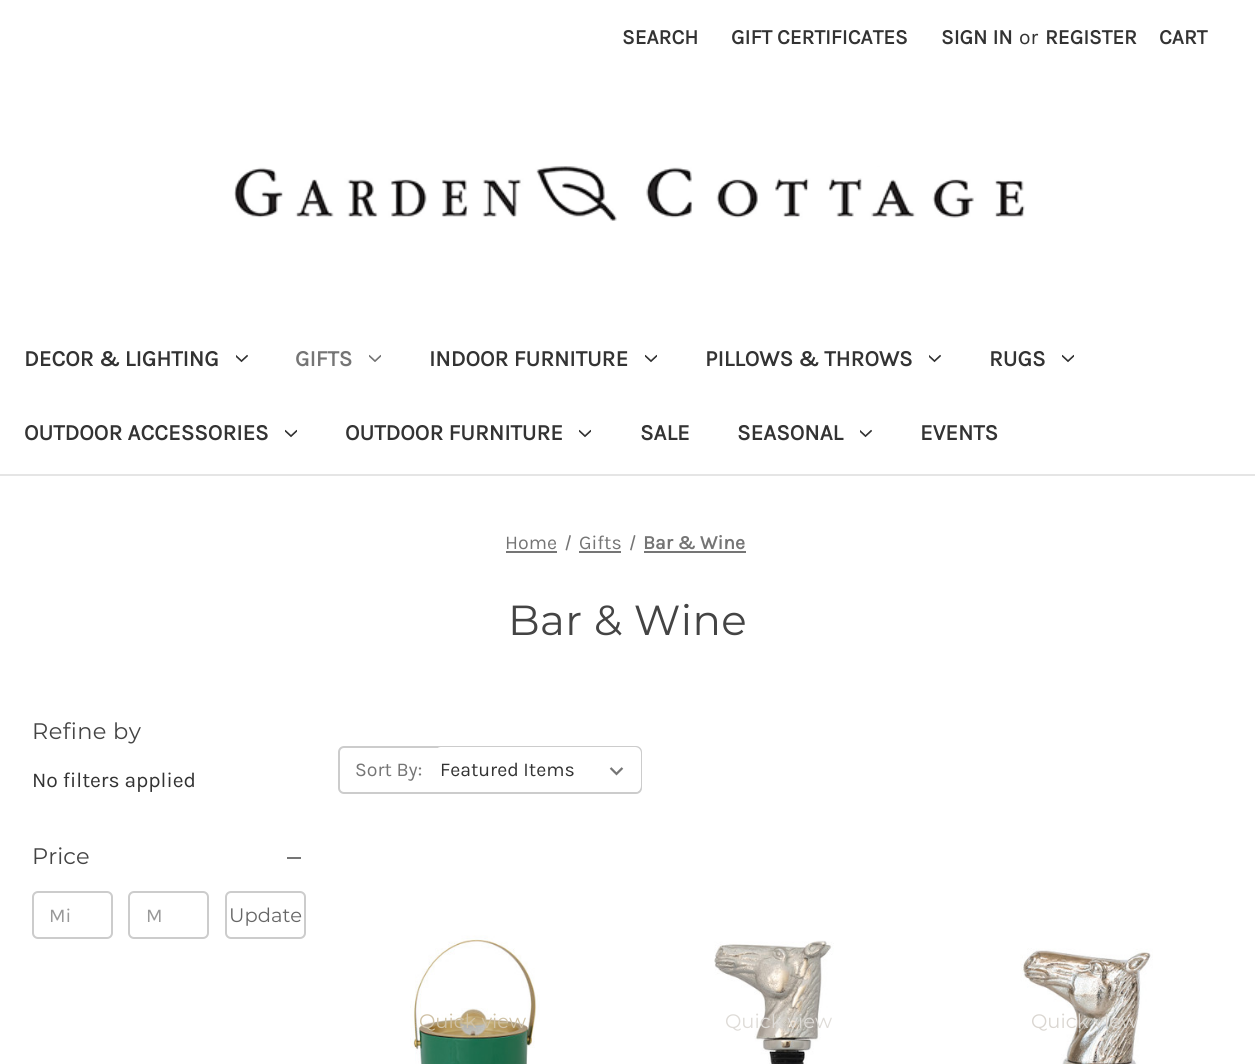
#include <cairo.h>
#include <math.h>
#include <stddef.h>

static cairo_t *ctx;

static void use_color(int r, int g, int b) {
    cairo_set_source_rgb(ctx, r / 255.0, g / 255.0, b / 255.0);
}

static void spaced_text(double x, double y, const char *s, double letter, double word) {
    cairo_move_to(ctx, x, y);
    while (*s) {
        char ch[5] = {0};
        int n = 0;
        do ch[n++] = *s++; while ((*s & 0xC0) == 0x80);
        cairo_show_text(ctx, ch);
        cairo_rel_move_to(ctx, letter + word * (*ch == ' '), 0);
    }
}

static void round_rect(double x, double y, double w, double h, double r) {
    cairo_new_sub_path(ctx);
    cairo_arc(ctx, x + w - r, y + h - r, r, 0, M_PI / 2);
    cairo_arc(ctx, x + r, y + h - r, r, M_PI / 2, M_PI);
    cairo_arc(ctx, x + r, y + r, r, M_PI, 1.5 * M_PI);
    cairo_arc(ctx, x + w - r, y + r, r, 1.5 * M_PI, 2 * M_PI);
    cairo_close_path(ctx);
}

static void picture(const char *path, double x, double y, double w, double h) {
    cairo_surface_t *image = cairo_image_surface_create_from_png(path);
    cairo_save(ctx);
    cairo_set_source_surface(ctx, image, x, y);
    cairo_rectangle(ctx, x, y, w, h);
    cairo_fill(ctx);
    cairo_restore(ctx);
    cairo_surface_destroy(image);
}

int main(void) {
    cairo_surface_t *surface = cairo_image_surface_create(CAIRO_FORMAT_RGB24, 1255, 1064);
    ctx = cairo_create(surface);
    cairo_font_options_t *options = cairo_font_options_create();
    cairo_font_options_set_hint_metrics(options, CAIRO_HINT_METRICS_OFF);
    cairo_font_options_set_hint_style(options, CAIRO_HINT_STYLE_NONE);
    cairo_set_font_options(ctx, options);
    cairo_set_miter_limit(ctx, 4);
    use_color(255, 255, 255);
    cairo_paint(ctx);
    use_color(229, 229, 229);
    cairo_rectangle(ctx, 0, 474, 1255, 2);
    cairo_fill(ctx);
    cairo_select_font_face(ctx, "Karla", CAIRO_FONT_SLANT_NORMAL, CAIRO_FONT_WEIGHT_BOLD);
    cairo_set_font_size(ctx, 21);
    use_color(51, 51, 51);
    cairo_move_to(ctx, 622, 44);
    cairo_show_text(ctx, "SEARCH");
    cairo_move_to(ctx, 731, 44);
    cairo_show_text(ctx, "GIFT CERTIFICATES");
    cairo_move_to(ctx, 941, 44);
    cairo_show_text(ctx, "SIGN IN");
    cairo_select_font_face(ctx, "Karla", CAIRO_FONT_SLANT_NORMAL, CAIRO_FONT_WEIGHT_NORMAL);
    cairo_move_to(ctx, 1019, 44);
    cairo_show_text(ctx, "or");
    cairo_select_font_face(ctx, "Karla", CAIRO_FONT_SLANT_NORMAL, CAIRO_FONT_WEIGHT_BOLD);
    cairo_move_to(ctx, 1045, 44);
    cairo_show_text(ctx, "REGISTER");
    cairo_move_to(ctx, 1159, 44);
    cairo_show_text(ctx, "CART");
    picture("img1.png", 234, 166, 791, 55);
    cairo_set_font_size(ctx, 22.5);
    cairo_move_to(ctx, 24, 366);
    cairo_show_text(ctx, "DECOR & LIGHTING");
    picture("img2.png", 236, 354, 12, 9);
    use_color(117, 117, 117);
    cairo_move_to(ctx, 295, 366);
    cairo_show_text(ctx, "GIFTS");
    picture("img3.png", 369, 354, 12, 8);
    use_color(51, 51, 51);
    cairo_move_to(ctx, 429, 366);
    cairo_show_text(ctx, "INDOOR FURNITURE");
    picture("img4.png", 645, 354, 12, 9);
    cairo_move_to(ctx, 705, 366);
    cairo_show_text(ctx, "PILLOWS & THROWS");
    picture("img2.png", 929, 354, 12, 9);
    cairo_move_to(ctx, 989, 366);
    cairo_show_text(ctx, "RUGS");
    picture("img4.png", 1062, 354, 12, 9);
    cairo_move_to(ctx, 24, 440);
    cairo_show_text(ctx, "OUTDOOR ACCESSORIES");
    picture("img4.png", 285, 429, 12, 9);
    cairo_move_to(ctx, 345, 440);
    cairo_show_text(ctx, "OUTDOOR FURNITURE");
    picture("img4.png", 579, 429, 12, 9);
    cairo_move_to(ctx, 640, 440);
    cairo_show_text(ctx, "SALE");
    cairo_move_to(ctx, 737, 440);
    cairo_show_text(ctx, "SEASONAL");
    picture("img2.png", 860, 429, 12, 9);
    cairo_move_to(ctx, 920, 440);
    cairo_show_text(ctx, "EVENTS");
    cairo_select_font_face(ctx, "Karla", CAIRO_FONT_SLANT_NORMAL, CAIRO_FONT_WEIGHT_NORMAL);
    cairo_set_font_size(ctx, 19.5);
    use_color(117, 117, 117);
    cairo_move_to(ctx, 505, 549);
    cairo_show_text(ctx, "Home");
    cairo_rectangle(ctx, 506, 551, 51, 2);
    cairo_fill(ctx);
    cairo_new_path(ctx);
    cairo_move_to(ctx, 569.5, 535);
    cairo_line_to(ctx, 571, 535.5);
    cairo_line_to(ctx, 567, 550.5);
    cairo_line_to(ctx, 565.5, 550);
    cairo_close_path(ctx);
    cairo_fill(ctx);
    cairo_move_to(ctx, 579, 549);
    cairo_show_text(ctx, "Gifts");
    cairo_rectangle(ctx, 579, 551, 42, 2);
    cairo_fill(ctx);
    cairo_new_path(ctx);
    cairo_move_to(ctx, 634, 535);
    cairo_line_to(ctx, 635.5, 535.5);
    cairo_line_to(ctx, 631.5, 550.5);
    cairo_line_to(ctx, 630, 550);
    cairo_close_path(ctx);
    cairo_fill(ctx);
    cairo_select_font_face(ctx, "Karla", CAIRO_FONT_SLANT_NORMAL, CAIRO_FONT_WEIGHT_BOLD);
    cairo_move_to(ctx, 643, 549);
    cairo_show_text(ctx, "Bar & Wine");
    cairo_rectangle(ctx, 644, 551, 102, 2);
    cairo_fill(ctx);
    cairo_select_font_face(ctx, "Montserrat", CAIRO_FONT_SLANT_NORMAL, CAIRO_FONT_WEIGHT_NORMAL);
    cairo_set_font_size(ctx, 42);
    use_color(68, 68, 68);
    spaced_text(508, 635, "Bar & Wine", 0.4, 0);
    cairo_set_font_size(ctx, 22.5);
    spaced_text(32, 739, "Refine by", 0.4, 0);
    cairo_select_font_face(ctx, "Karla", CAIRO_FONT_SLANT_NORMAL, CAIRO_FONT_WEIGHT_NORMAL);
    cairo_set_font_size(ctx, 21);
    use_color(51, 51, 51);
    cairo_move_to(ctx, 32, 787);
    cairo_show_text(ctx, "No filters applied");
    cairo_select_font_face(ctx, "Montserrat", CAIRO_FONT_SLANT_NORMAL, CAIRO_FONT_WEIGHT_NORMAL);
    cairo_set_font_size(ctx, 22.5);
    use_color(68, 68, 68);
    cairo_move_to(ctx, 32, 864);
    cairo_show_text(ctx, "Price");
    use_color(117, 117, 117);
    cairo_rectangle(ctx, 287, 857, 14, 2);
    cairo_fill(ctx);
    round_rect(33, 892, 79, 46, 5);
    use_color(204, 204, 204);
    cairo_stroke(ctx);
    cairo_select_font_face(ctx, "Karla", CAIRO_FONT_SLANT_NORMAL, CAIRO_FONT_WEIGHT_NORMAL);
    cairo_set_font_size(ctx, 19.5);
    use_color(153, 153, 153);
    cairo_move_to(ctx, 49, 922);
    cairo_show_text(ctx, "Mi");
    round_rect(129, 892, 79, 46, 5);
    use_color(204, 204, 204);
    cairo_stroke(ctx);
    use_color(153, 153, 153);
    cairo_move_to(ctx, 146, 922);
    cairo_show_text(ctx, "M");
    round_rect(226, 892, 79, 46, 5);
    use_color(204, 204, 204);
    cairo_stroke(ctx);
    cairo_select_font_face(ctx, "Montserrat", CAIRO_FONT_SLANT_NORMAL, CAIRO_FONT_WEIGHT_NORMAL);
    use_color(102, 102, 102);
    cairo_move_to(ctx, 229, 922);
    cairo_show_text(ctx, "Update");
    round_rect(339, 747, 302, 46, 5);
    use_color(204, 204, 204);
    cairo_stroke(ctx);
    cairo_select_font_face(ctx, "Karla", CAIRO_FONT_SLANT_NORMAL, CAIRO_FONT_WEIGHT_NORMAL);
    use_color(117, 117, 117);
    cairo_move_to(ctx, 355, 776);
    cairo_show_text(ctx, "Sort By:");
    use_color(255, 255, 255);
    round_rect(435, 747, 206, 45, 6);
    cairo_fill(ctx);
    picture("img5.png", 609, 767, 15, 9);
    use_color(51, 51, 51);
    cairo_move_to(ctx, 440, 776);
    cairo_show_text(ctx, "Featured Items");
    picture("img6.png", 410, 935, 130, 129);
    cairo_select_font_face(ctx, "Montserrat", CAIRO_FONT_SLANT_NORMAL, CAIRO_FONT_WEIGHT_NORMAL);
    use_color(207, 193, 165);
    cairo_move_to(ctx, 419, 1028);
    cairo_show_text(ctx, "Quick view");
    picture("img7.png", 714, 940, 120, 124);
    use_color(222, 219, 215);
    cairo_move_to(ctx, 725, 1028);
    cairo_show_text(ctx, "Quick view");
    picture("img8.png", 1020, 948, 133, 116);
    use_color(218, 214, 209);
    cairo_move_to(ctx, 1031, 1028);
    cairo_show_text(ctx, "Quick view");
    cairo_surface_write_to_png(surface, "result.png");
    cairo_font_options_destroy(options);
    cairo_destroy(ctx);
    cairo_surface_destroy(surface);
    return 0;
}
